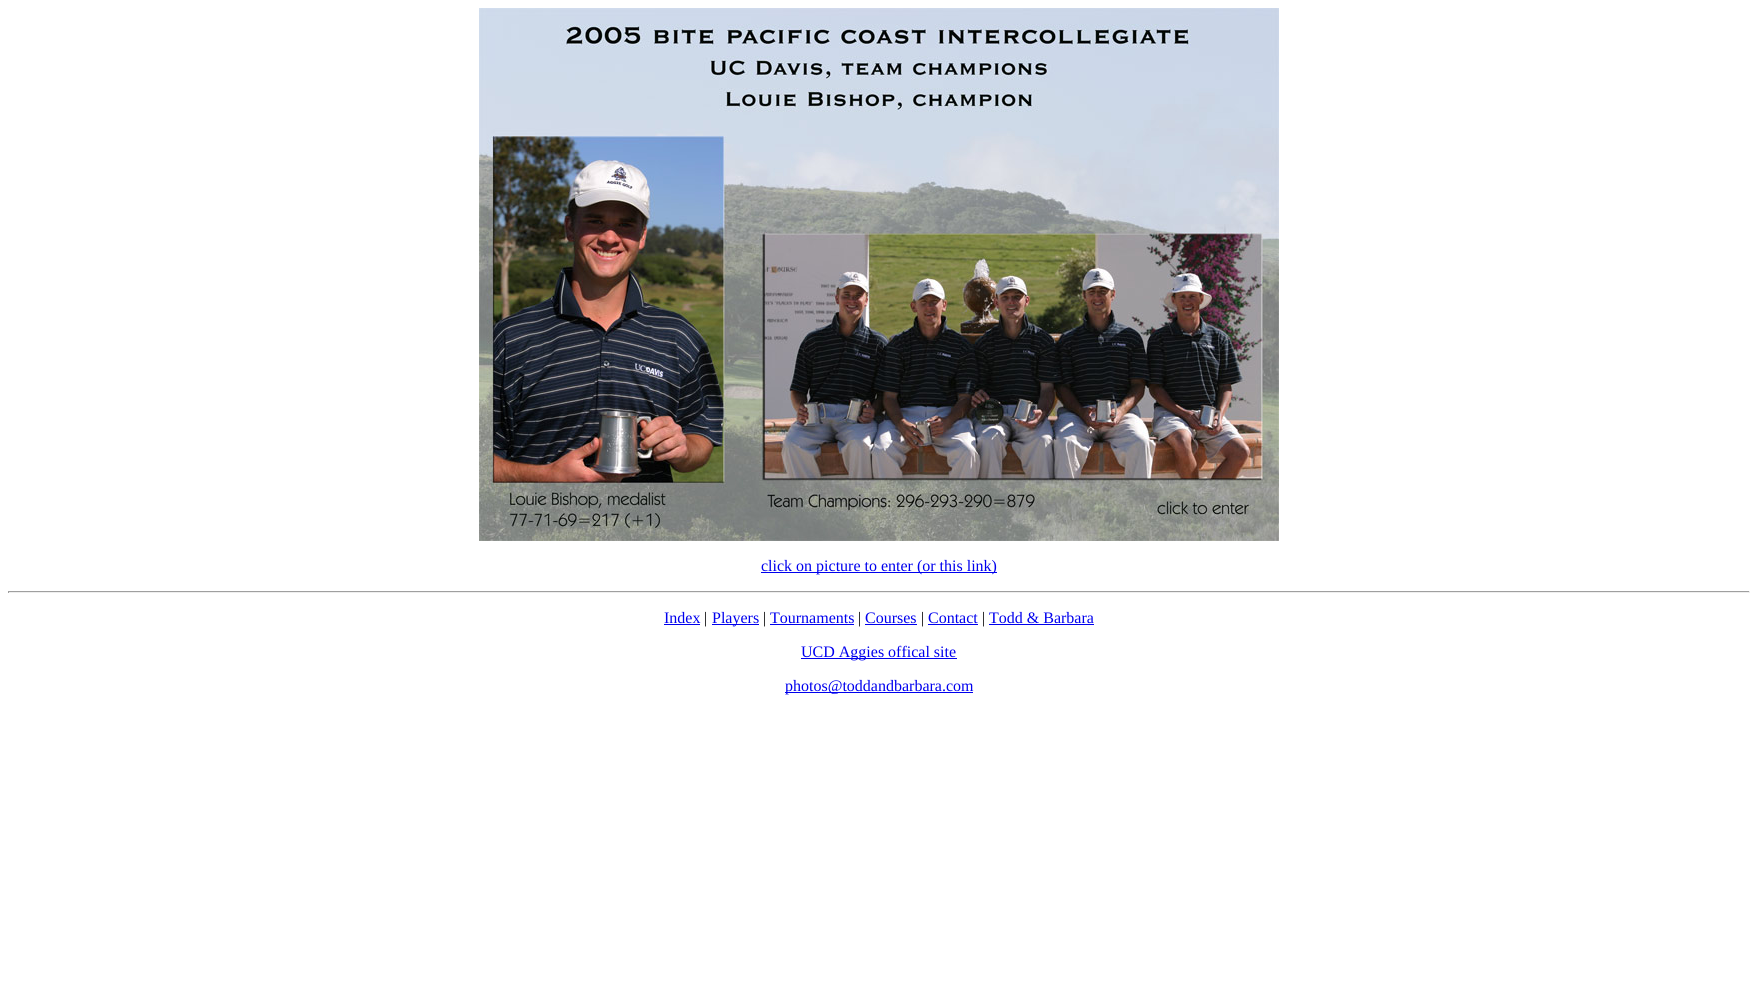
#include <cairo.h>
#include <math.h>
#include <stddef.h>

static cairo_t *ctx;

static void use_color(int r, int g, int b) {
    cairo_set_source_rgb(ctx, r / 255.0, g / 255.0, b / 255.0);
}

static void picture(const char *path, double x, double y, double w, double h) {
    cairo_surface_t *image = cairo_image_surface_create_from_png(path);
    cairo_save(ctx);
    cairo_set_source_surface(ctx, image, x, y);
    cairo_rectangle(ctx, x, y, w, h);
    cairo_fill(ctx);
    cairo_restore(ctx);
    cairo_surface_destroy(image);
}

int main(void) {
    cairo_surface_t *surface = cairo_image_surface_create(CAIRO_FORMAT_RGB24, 1758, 998);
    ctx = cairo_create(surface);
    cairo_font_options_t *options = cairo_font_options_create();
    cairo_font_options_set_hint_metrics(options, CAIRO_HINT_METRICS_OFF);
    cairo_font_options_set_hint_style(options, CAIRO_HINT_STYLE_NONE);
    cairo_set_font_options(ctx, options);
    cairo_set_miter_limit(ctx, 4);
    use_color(255, 255, 255);
    cairo_paint(ctx);
    picture("img1.png", 479, 8, 800, 533);
    use_color(0, 0, 238);
    cairo_rectangle(ctx, 761, 572, 236, 1);
    cairo_fill(ctx);
    cairo_select_font_face(ctx, "Liberation Serif", CAIRO_FONT_SLANT_NORMAL, CAIRO_FONT_WEIGHT_NORMAL);
    cairo_set_font_size(ctx, 16);
    cairo_move_to(ctx, 761, 571);
    cairo_show_text(ctx, "click on picture to enter (or this link)");
    use_color(159, 159, 159);
    cairo_rectangle(ctx, 8, 591, 1742, 1);
    cairo_fill(ctx);
    use_color(238, 238, 238);
    cairo_rectangle(ctx, 1749, 591, 1, 2);
    cairo_fill(ctx);
    cairo_rectangle(ctx, 8, 592, 1742, 1);
    cairo_fill(ctx);
    use_color(159, 159, 159);
    cairo_rectangle(ctx, 8, 591, 1, 2);
    cairo_fill(ctx);
    use_color(0, 0, 238);
    cairo_move_to(ctx, 664, 623);
    cairo_show_text(ctx, "Index");
    cairo_rectangle(ctx, 664, 624, 36, 1);
    cairo_fill(ctx);
    use_color(0, 0, 0);
    cairo_move_to(ctx, 704, 623);
    cairo_show_text(ctx, "|");
    use_color(0, 0, 238);
    cairo_rectangle(ctx, 712, 624, 47, 1);
    cairo_fill(ctx);
    cairo_move_to(ctx, 712, 623);
    cairo_show_text(ctx, "Players");
    use_color(0, 0, 0);
    cairo_move_to(ctx, 763, 623);
    cairo_show_text(ctx, "|");
    use_color(0, 0, 238);
    cairo_move_to(ctx, 770, 623);
    cairo_show_text(ctx, "Tournaments");
    cairo_rectangle(ctx, 770, 624, 84, 1);
    cairo_fill(ctx);
    use_color(0, 0, 0);
    cairo_move_to(ctx, 858, 623);
    cairo_show_text(ctx, "|");
    use_color(0, 0, 238);
    cairo_move_to(ctx, 865, 623);
    cairo_show_text(ctx, "Courses");
    cairo_rectangle(ctx, 865, 624, 52, 1);
    cairo_fill(ctx);
    use_color(0, 0, 0);
    cairo_move_to(ctx, 921, 623);
    cairo_show_text(ctx, "|");
    use_color(0, 0, 238);
    cairo_move_to(ctx, 928, 623);
    cairo_show_text(ctx, "Contact");
    cairo_rectangle(ctx, 928, 624, 50, 1);
    cairo_fill(ctx);
    use_color(0, 0, 0);
    cairo_move_to(ctx, 982, 623);
    cairo_show_text(ctx, "|");
    use_color(0, 0, 238);
    cairo_move_to(ctx, 989, 623);
    cairo_show_text(ctx, "Todd & Barbara");
    cairo_rectangle(ctx, 989, 624, 105, 1);
    cairo_fill(ctx);
    cairo_rectangle(ctx, 801, 658, 156, 1);
    cairo_fill(ctx);
    cairo_move_to(ctx, 801, 657);
    cairo_show_text(ctx, "UCD Aggies offical site");
    cairo_rectangle(ctx, 785, 692, 188, 1);
    cairo_fill(ctx);
    cairo_move_to(ctx, 785, 691);
    cairo_show_text(ctx, "photos@toddandbarbara.com");
    cairo_surface_write_to_png(surface, "result.png");
    cairo_font_options_destroy(options);
    cairo_destroy(ctx);
    cairo_surface_destroy(surface);
    return 0;
}
